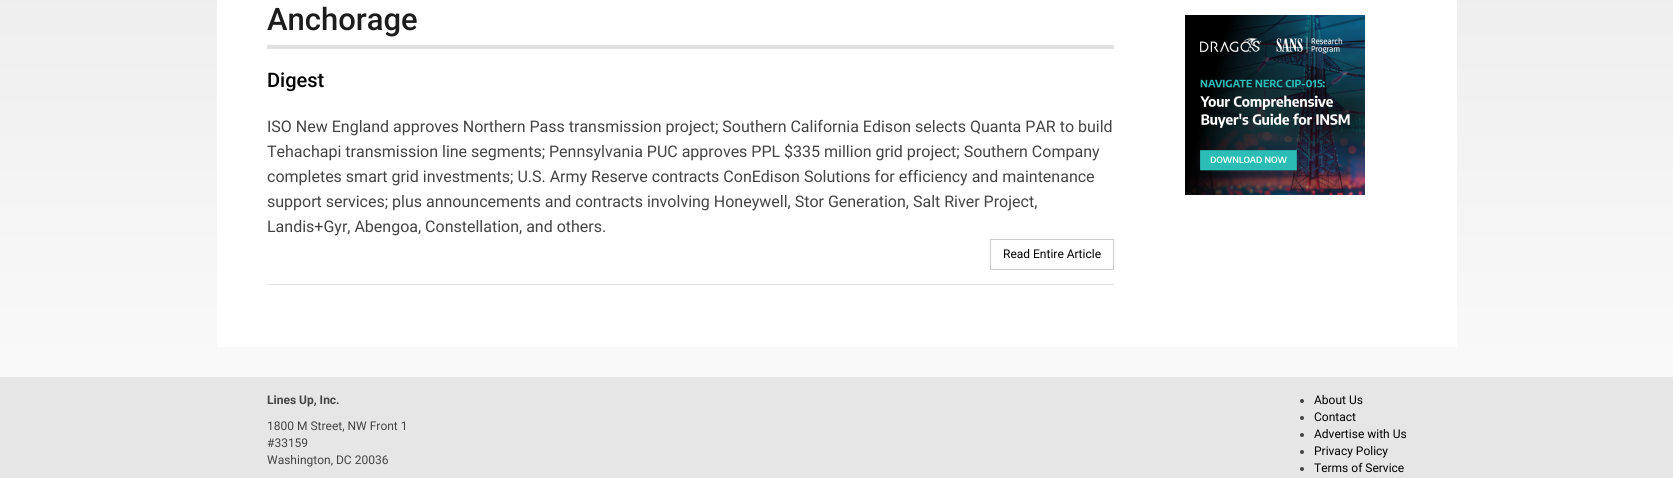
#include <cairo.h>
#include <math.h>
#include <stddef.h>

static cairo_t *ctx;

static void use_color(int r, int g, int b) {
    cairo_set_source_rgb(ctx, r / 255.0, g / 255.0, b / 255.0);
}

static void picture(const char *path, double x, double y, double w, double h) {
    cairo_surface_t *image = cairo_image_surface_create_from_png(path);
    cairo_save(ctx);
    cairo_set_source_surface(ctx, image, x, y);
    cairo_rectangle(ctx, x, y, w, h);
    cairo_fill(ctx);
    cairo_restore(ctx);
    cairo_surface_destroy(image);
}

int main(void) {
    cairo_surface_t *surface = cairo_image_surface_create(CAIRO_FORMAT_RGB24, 1673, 478);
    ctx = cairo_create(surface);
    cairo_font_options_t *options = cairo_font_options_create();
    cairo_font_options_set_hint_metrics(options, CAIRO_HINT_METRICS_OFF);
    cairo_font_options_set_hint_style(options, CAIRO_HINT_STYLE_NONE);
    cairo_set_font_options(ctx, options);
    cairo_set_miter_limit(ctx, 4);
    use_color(255, 255, 255);
    cairo_paint(ctx);
    picture("img1.png", 0, 0, 1673, 377);
    use_color(255, 255, 255);
    cairo_rectangle(ctx, 217, 0, 1240, 347);
    cairo_fill(ctx);
    use_color(225, 225, 225);
    cairo_rectangle(ctx, 267, 45, 847, 4);
    cairo_fill(ctx);
    cairo_select_font_face(ctx, "Roboto Medium", CAIRO_FONT_SLANT_NORMAL, CAIRO_FONT_WEIGHT_NORMAL);
    cairo_set_font_size(ctx, 31);
    use_color(28, 28, 28);
    cairo_move_to(ctx, 267, 30);
    cairo_show_text(ctx, "Anchorage");
    use_color(225, 225, 225);
    cairo_rectangle(ctx, 267, 284, 847, 1);
    cairo_fill(ctx);
    cairo_set_font_size(ctx, 20);
    use_color(0, 0, 0);
    cairo_move_to(ctx, 267, 87);
    cairo_show_text(ctx, "Digest");
    cairo_select_font_face(ctx, "Roboto", CAIRO_FONT_SLANT_NORMAL, CAIRO_FONT_WEIGHT_NORMAL);
    cairo_set_font_size(ctx, 16);
    use_color(68, 68, 68);
    cairo_move_to(ctx, 267, 132);
    cairo_show_text(ctx, "ISO New England approves Northern Pass transmission project; Southern California Edison selects Quanta PAR to build");
    cairo_move_to(ctx, 267, 157);
    cairo_show_text(ctx, "Tehachapi transmission line segments; Pennsylvania PUC approves PPL $335 million grid project; Southern Company");
    cairo_move_to(ctx, 267, 182);
    cairo_show_text(ctx, "completes smart grid investments; U.S. Army Reserve contracts ConEdison Solutions for efficiency and maintenance");
    cairo_move_to(ctx, 267, 207);
    cairo_show_text(ctx, "support services; plus announcements and contracts involving Honeywell, Stor Generation, Salt River Project,");
    cairo_move_to(ctx, 267, 232);
    cairo_show_text(ctx, "Landis+Gyr, Abengoa, Constellation, and others.");
    cairo_rectangle(ctx, 990.5, 239.5, 123, 30);
    use_color(204, 204, 204);
    cairo_set_line_width(ctx, 1);
    cairo_stroke(ctx);
    cairo_set_font_size(ctx, 12);
    use_color(0, 0, 0);
    cairo_move_to(ctx, 1003, 258);
    cairo_show_text(ctx, "Read Entire Article");
    picture("img2.png", 1185, 15, 180, 180);
    use_color(230, 230, 230);
    cairo_rectangle(ctx, 0, 377, 1673, 101);
    cairo_fill(ctx);
    cairo_select_font_face(ctx, "Roboto", CAIRO_FONT_SLANT_NORMAL, CAIRO_FONT_WEIGHT_BOLD);
    use_color(68, 68, 68);
    cairo_move_to(ctx, 267, 404);
    cairo_show_text(ctx, "Lines Up, Inc.");
    cairo_select_font_face(ctx, "Roboto", CAIRO_FONT_SLANT_NORMAL, CAIRO_FONT_WEIGHT_NORMAL);
    cairo_move_to(ctx, 267, 430);
    cairo_show_text(ctx, "1800 M Street, NW Front 1");
    cairo_move_to(ctx, 267, 447);
    cairo_show_text(ctx, "#33159");
    cairo_move_to(ctx, 267, 464);
    cairo_show_text(ctx, "Washington, DC 20036");
    cairo_new_path(ctx);
    cairo_arc(ctx, 1302, 401, 2, 0, 2 * M_PI);
    cairo_fill(ctx);
    use_color(0, 0, 0);
    cairo_move_to(ctx, 1314, 404);
    cairo_show_text(ctx, "About Us");
    use_color(68, 68, 68);
    cairo_new_path(ctx);
    cairo_arc(ctx, 1302, 418, 2, 0, 2 * M_PI);
    cairo_fill(ctx);
    use_color(0, 0, 0);
    cairo_move_to(ctx, 1314, 421);
    cairo_show_text(ctx, "Contact");
    use_color(68, 68, 68);
    cairo_new_path(ctx);
    cairo_arc(ctx, 1302, 435, 2, 0, 2 * M_PI);
    cairo_fill(ctx);
    use_color(0, 0, 0);
    cairo_move_to(ctx, 1314, 438);
    cairo_show_text(ctx, "Advertise with Us");
    use_color(68, 68, 68);
    cairo_new_path(ctx);
    cairo_arc(ctx, 1302, 452, 2, 0, 2 * M_PI);
    cairo_fill(ctx);
    use_color(0, 0, 0);
    cairo_move_to(ctx, 1314, 455);
    cairo_show_text(ctx, "Privacy Policy");
    use_color(68, 68, 68);
    cairo_new_path(ctx);
    cairo_arc(ctx, 1302, 469, 2, 0, 2 * M_PI);
    cairo_fill(ctx);
    use_color(0, 0, 0);
    cairo_move_to(ctx, 1314, 472);
    cairo_show_text(ctx, "Terms of Service");
    cairo_surface_write_to_png(surface, "result.png");
    cairo_font_options_destroy(options);
    cairo_destroy(ctx);
    cairo_surface_destroy(surface);
    return 0;
}
